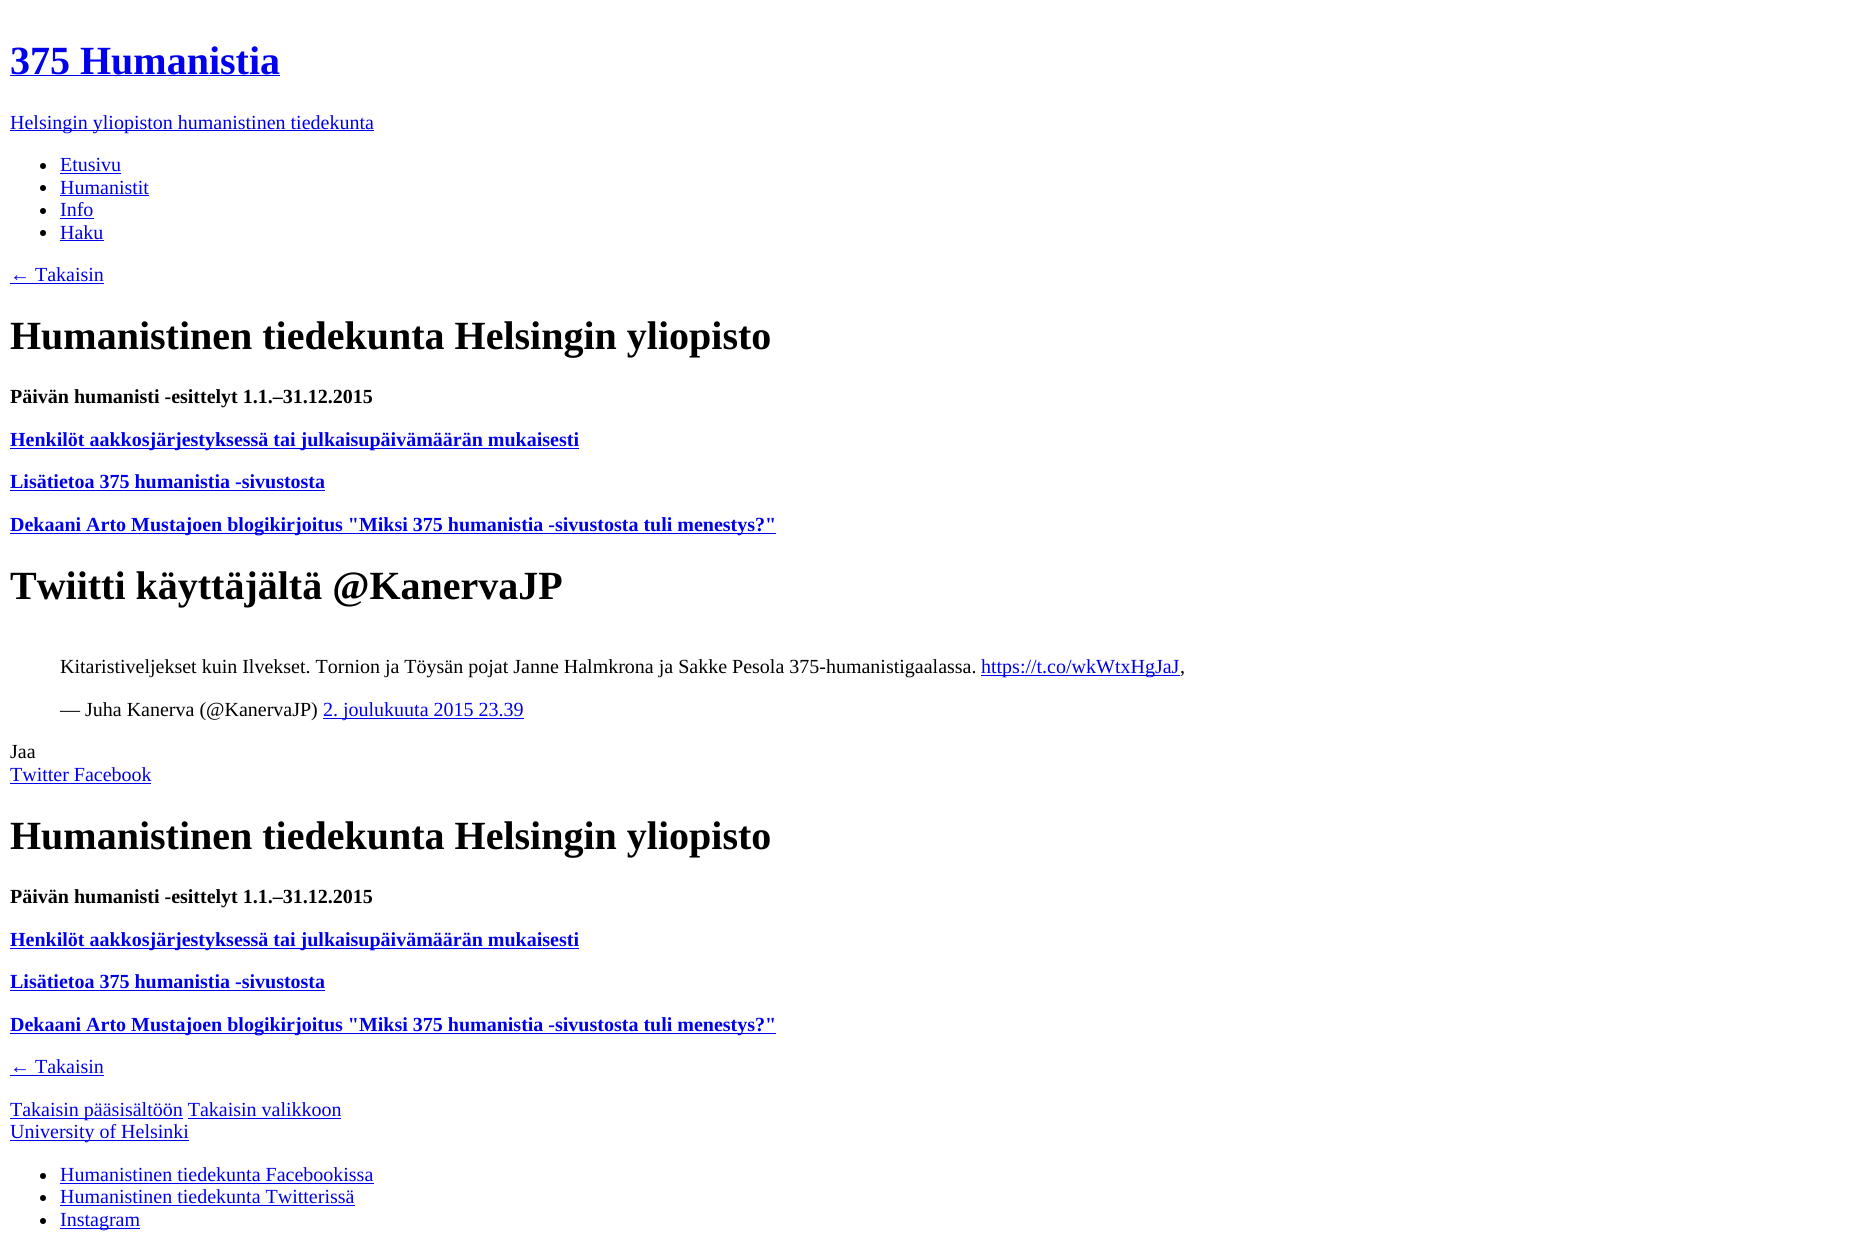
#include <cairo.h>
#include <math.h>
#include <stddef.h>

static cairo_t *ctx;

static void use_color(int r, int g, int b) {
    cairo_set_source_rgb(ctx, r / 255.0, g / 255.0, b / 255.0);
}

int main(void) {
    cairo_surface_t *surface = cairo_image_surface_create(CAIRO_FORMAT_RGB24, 1849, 1253);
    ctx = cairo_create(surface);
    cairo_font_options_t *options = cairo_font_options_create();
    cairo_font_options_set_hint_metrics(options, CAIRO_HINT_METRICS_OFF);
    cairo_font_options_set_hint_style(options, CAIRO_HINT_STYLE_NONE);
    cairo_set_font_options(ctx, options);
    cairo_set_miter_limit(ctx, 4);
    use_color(255, 255, 255);
    cairo_paint(ctx);
    cairo_select_font_face(ctx, "Liberation Serif", CAIRO_FONT_SLANT_NORMAL, CAIRO_FONT_WEIGHT_BOLD);
    cairo_set_font_size(ctx, 40);
    use_color(0, 0, 238);
    cairo_move_to(ctx, 10, 74);
    cairo_show_text(ctx, "375 Humanistia");
    cairo_rectangle(ctx, 10, 75, 270, 1);
    cairo_fill(ctx);
    cairo_rectangle(ctx, 10, 130, 364, 1);
    cairo_fill(ctx);
    cairo_select_font_face(ctx, "Liberation Serif", CAIRO_FONT_SLANT_NORMAL, CAIRO_FONT_WEIGHT_NORMAL);
    cairo_set_font_size(ctx, 20);
    cairo_move_to(ctx, 10, 129);
    cairo_show_text(ctx, "Helsingin yliopiston humanistinen tiedekunta");
    use_color(0, 0, 0);
    cairo_new_path(ctx);
    cairo_arc(ctx, 43, 166, 3, 0, 2 * M_PI);
    cairo_fill(ctx);
    use_color(0, 0, 238);
    cairo_move_to(ctx, 60, 171);
    cairo_show_text(ctx, "Etusivu");
    cairo_rectangle(ctx, 60, 173, 61, 1);
    cairo_fill(ctx);
    use_color(0, 0, 0);
    cairo_arc(ctx, 43, 188, 3, 0, 2 * M_PI);
    cairo_fill(ctx);
    use_color(0, 0, 238);
    cairo_move_to(ctx, 60, 194);
    cairo_show_text(ctx, "Humanistit");
    cairo_rectangle(ctx, 60, 195, 89, 1);
    cairo_fill(ctx);
    use_color(0, 0, 0);
    cairo_arc(ctx, 43, 211, 3, 0, 2 * M_PI);
    cairo_fill(ctx);
    use_color(0, 0, 238);
    cairo_move_to(ctx, 60, 216);
    cairo_show_text(ctx, "Info");
    cairo_rectangle(ctx, 60, 218, 34, 1);
    cairo_fill(ctx);
    use_color(0, 0, 0);
    cairo_arc(ctx, 43, 233, 3, 0, 2 * M_PI);
    cairo_fill(ctx);
    use_color(0, 0, 238);
    cairo_move_to(ctx, 60, 239);
    cairo_show_text(ctx, "Haku");
    cairo_rectangle(ctx, 60, 240, 44, 1);
    cairo_fill(ctx);
    cairo_select_font_face(ctx, "Liberation Serif", CAIRO_FONT_SLANT_ITALIC, CAIRO_FONT_WEIGHT_NORMAL);
    cairo_move_to(ctx, 10, 281);
    cairo_show_text(ctx, "←");
    cairo_rectangle(ctx, 10, 283, 94, 1);
    cairo_fill(ctx);
    cairo_select_font_face(ctx, "Liberation Serif", CAIRO_FONT_SLANT_NORMAL, CAIRO_FONT_WEIGHT_NORMAL);
    cairo_move_to(ctx, 35, 281);
    cairo_show_text(ctx, "Takaisin");
    cairo_select_font_face(ctx, "Liberation Serif", CAIRO_FONT_SLANT_NORMAL, CAIRO_FONT_WEIGHT_BOLD);
    cairo_set_font_size(ctx, 40);
    use_color(0, 0, 0);
    cairo_move_to(ctx, 10, 349);
    cairo_show_text(ctx, "Humanistinen tiedekunta Helsingin yliopisto");
    cairo_set_font_size(ctx, 20);
    cairo_move_to(ctx, 10, 403);
    cairo_show_text(ctx, "Päivän humanisti -esittelyt 1.1.–31.12.2015");
    use_color(0, 0, 238);
    cairo_rectangle(ctx, 10, 448, 569, 1);
    cairo_fill(ctx);
    cairo_move_to(ctx, 10, 446);
    cairo_show_text(ctx, "Henkilöt aakkosjärjestyksessä tai julkaisupäivämäärän mukaisesti");
    cairo_move_to(ctx, 10, 488);
    cairo_show_text(ctx, "Lisätietoa 375 humanistia -sivustosta");
    cairo_rectangle(ctx, 10, 490, 315, 1);
    cairo_fill(ctx);
    cairo_rectangle(ctx, 10, 533, 766, 1);
    cairo_fill(ctx);
    cairo_move_to(ctx, 10, 531);
    cairo_show_text(ctx, "Dekaani Arto Mustajoen blogikirjoitus \"Miksi 375 humanistia -sivustosta tuli menestys?\"");
    cairo_set_font_size(ctx, 40);
    use_color(0, 0, 0);
    cairo_move_to(ctx, 10, 599);
    cairo_show_text(ctx, "Twiitti käyttäjältä @KanervaJP");
    cairo_select_font_face(ctx, "Liberation Serif", CAIRO_FONT_SLANT_NORMAL, CAIRO_FONT_WEIGHT_NORMAL);
    cairo_set_font_size(ctx, 20);
    cairo_move_to(ctx, 60, 673);
    cairo_show_text(ctx, "Kitaristiveljekset kuin Ilvekset. Tornion ja Töysän pojat Janne Halmkrona ja Sakke Pesola 375-humanistigaalassa.");
    use_color(0, 0, 238);
    cairo_rectangle(ctx, 981, 675, 199, 1);
    cairo_fill(ctx);
    cairo_move_to(ctx, 981, 673);
    cairo_show_text(ctx, "https://t.co/wkWtxHgJaJ");
    use_color(0, 0, 0);
    cairo_move_to(ctx, 1180, 673);
    cairo_show_text(ctx, ",");
    cairo_move_to(ctx, 60, 716);
    cairo_show_text(ctx, "— Juha Kanerva (@KanervaJP)");
    use_color(0, 0, 238);
    cairo_rectangle(ctx, 323, 718, 201, 1);
    cairo_fill(ctx);
    cairo_move_to(ctx, 323, 716);
    cairo_show_text(ctx, "2. joulukuuta 2015 23.39");
    use_color(0, 0, 0);
    cairo_move_to(ctx, 10, 758);
    cairo_show_text(ctx, "Jaa");
    use_color(0, 0, 238);
    cairo_move_to(ctx, 10, 781);
    cairo_show_text(ctx, "Twitter Facebook");
    cairo_rectangle(ctx, 10, 783, 141, 1);
    cairo_fill(ctx);
    cairo_select_font_face(ctx, "Liberation Serif", CAIRO_FONT_SLANT_NORMAL, CAIRO_FONT_WEIGHT_BOLD);
    cairo_set_font_size(ctx, 40);
    use_color(0, 0, 0);
    cairo_move_to(ctx, 10, 849);
    cairo_show_text(ctx, "Humanistinen tiedekunta Helsingin yliopisto");
    cairo_set_font_size(ctx, 20);
    cairo_move_to(ctx, 10, 903);
    cairo_show_text(ctx, "Päivän humanisti -esittelyt 1.1.–31.12.2015");
    use_color(0, 0, 238);
    cairo_rectangle(ctx, 10, 948, 569, 1);
    cairo_fill(ctx);
    cairo_move_to(ctx, 10, 946);
    cairo_show_text(ctx, "Henkilöt aakkosjärjestyksessä tai julkaisupäivämäärän mukaisesti");
    cairo_move_to(ctx, 10, 988);
    cairo_show_text(ctx, "Lisätietoa 375 humanistia -sivustosta");
    cairo_rectangle(ctx, 10, 990, 315, 1);
    cairo_fill(ctx);
    cairo_rectangle(ctx, 10, 1033, 766, 1);
    cairo_fill(ctx);
    cairo_move_to(ctx, 10, 1031);
    cairo_show_text(ctx, "Dekaani Arto Mustajoen blogikirjoitus \"Miksi 375 humanistia -sivustosta tuli menestys?\"");
    cairo_select_font_face(ctx, "Liberation Serif", CAIRO_FONT_SLANT_ITALIC, CAIRO_FONT_WEIGHT_NORMAL);
    cairo_move_to(ctx, 10, 1073);
    cairo_show_text(ctx, "←");
    cairo_rectangle(ctx, 10, 1075, 94, 1);
    cairo_fill(ctx);
    cairo_select_font_face(ctx, "Liberation Serif", CAIRO_FONT_SLANT_NORMAL, CAIRO_FONT_WEIGHT_NORMAL);
    cairo_move_to(ctx, 35, 1073);
    cairo_show_text(ctx, "Takaisin");
    cairo_rectangle(ctx, 10, 1118, 173, 1);
    cairo_fill(ctx);
    cairo_move_to(ctx, 10, 1116);
    cairo_show_text(ctx, "Takaisin pääsisältöön Takaisin valikkoon");
    cairo_rectangle(ctx, 188, 1118, 153, 1);
    cairo_fill(ctx);
    cairo_rectangle(ctx, 10, 1140, 179, 1);
    cairo_fill(ctx);
    cairo_move_to(ctx, 10, 1138);
    cairo_show_text(ctx, "University of Helsinki");
    use_color(0, 0, 0);
    cairo_new_path(ctx);
    cairo_arc(ctx, 43, 1176, 3, 0, 2 * M_PI);
    cairo_fill(ctx);
    use_color(0, 0, 238);
    cairo_move_to(ctx, 60, 1181);
    cairo_show_text(ctx, "Humanistinen tiedekunta Facebookissa");
    cairo_rectangle(ctx, 60, 1183, 314, 1);
    cairo_fill(ctx);
    use_color(0, 0, 0);
    cairo_arc(ctx, 43, 1198, 3, 0, 2 * M_PI);
    cairo_fill(ctx);
    use_color(0, 0, 238);
    cairo_move_to(ctx, 60, 1203);
    cairo_show_text(ctx, "Humanistinen tiedekunta Twitterissä");
    cairo_rectangle(ctx, 60, 1205, 295, 1);
    cairo_fill(ctx);
    use_color(0, 0, 0);
    cairo_arc(ctx, 43, 1221, 3, 0, 2 * M_PI);
    cairo_fill(ctx);
    use_color(0, 0, 238);
    cairo_rectangle(ctx, 60, 1228, 80, 1);
    cairo_fill(ctx);
    cairo_move_to(ctx, 60, 1226);
    cairo_show_text(ctx, "Instagram");
    cairo_surface_write_to_png(surface, "result.png");
    cairo_font_options_destroy(options);
    cairo_destroy(ctx);
    cairo_surface_destroy(surface);
    return 0;
}
